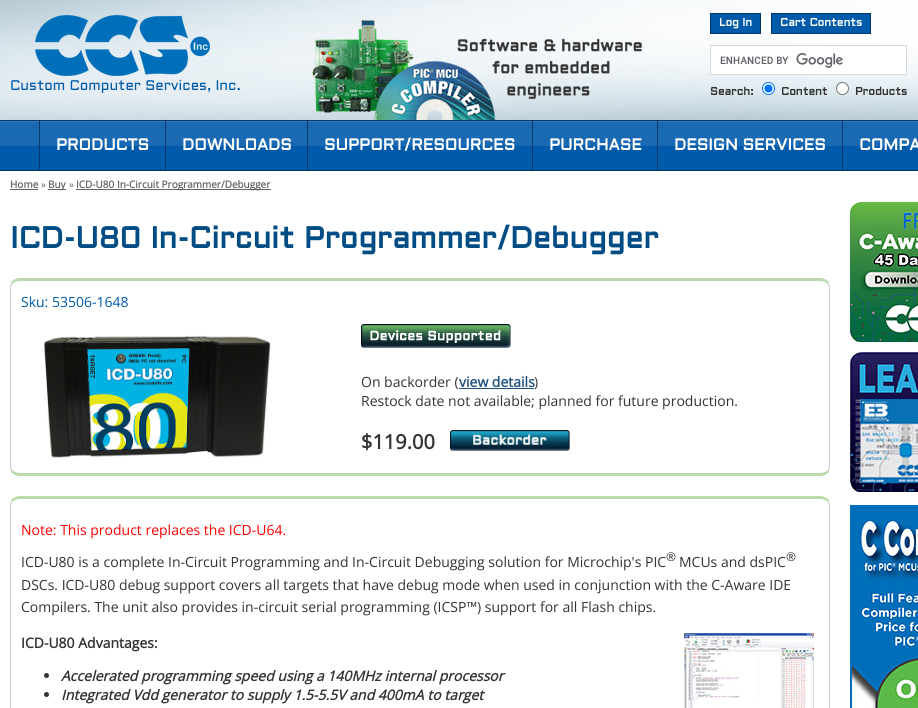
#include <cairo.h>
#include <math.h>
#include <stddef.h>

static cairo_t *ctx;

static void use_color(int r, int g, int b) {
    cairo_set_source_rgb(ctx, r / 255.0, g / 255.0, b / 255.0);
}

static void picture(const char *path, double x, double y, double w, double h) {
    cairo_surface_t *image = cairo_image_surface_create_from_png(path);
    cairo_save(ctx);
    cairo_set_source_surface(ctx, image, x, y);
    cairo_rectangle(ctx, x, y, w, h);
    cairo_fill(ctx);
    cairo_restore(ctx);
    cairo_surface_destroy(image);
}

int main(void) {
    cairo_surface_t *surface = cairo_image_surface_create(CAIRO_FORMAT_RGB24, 918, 708);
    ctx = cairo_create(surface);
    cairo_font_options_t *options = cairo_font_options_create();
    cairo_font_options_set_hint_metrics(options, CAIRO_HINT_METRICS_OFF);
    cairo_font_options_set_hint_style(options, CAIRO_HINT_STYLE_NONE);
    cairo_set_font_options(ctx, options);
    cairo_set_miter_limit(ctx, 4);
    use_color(255, 255, 255);
    cairo_paint(ctx);
    picture("img1.png", 0, 0, 918, 120);
    picture("img2.png", 312, 20, 330, 100);
    picture("img3.png", 35, 15, 175, 61);
    cairo_select_font_face(ctx, "Aldrich", CAIRO_FONT_SLANT_NORMAL, CAIRO_FONT_WEIGHT_NORMAL);
    cairo_set_font_size(ctx, 14);
    use_color(0, 90, 170);
    cairo_move_to(ctx, 10, 90);
    cairo_show_text(ctx, "Custom Computer Services, Inc.");
    cairo_rectangle(ctx, 710.5, 13.5, 50, 20);
    cairo_fill_preserve(ctx);
    use_color(4, 54, 108);
    cairo_set_line_width(ctx, 1);
    cairo_stroke(ctx);
    cairo_select_font_face(ctx, "Aldrich", CAIRO_FONT_SLANT_NORMAL, CAIRO_FONT_WEIGHT_BOLD);
    cairo_set_font_size(ctx, 11);
    use_color(255, 255, 255);
    cairo_move_to(ctx, 719, 26);
    cairo_show_text(ctx, "Log In");
    use_color(0, 90, 170);
    cairo_rectangle(ctx, 771.5, 13.5, 99, 20);
    cairo_fill_preserve(ctx);
    use_color(4, 54, 108);
    cairo_stroke(ctx);
    use_color(255, 255, 255);
    cairo_move_to(ctx, 780, 26);
    cairo_show_text(ctx, "Cart Contents");
    cairo_rectangle(ctx, 710.5, 45.5, 196, 29);
    cairo_fill_preserve(ctx);
    use_color(217, 217, 217);
    cairo_stroke(ctx);
    picture("img4.png", 720, 53, 123, 15);
    use_color(51, 51, 51);
    cairo_move_to(ctx, 710, 95);
    cairo_show_text(ctx, "Search:");
    use_color(255, 255, 255);
    cairo_new_path(ctx);
    cairo_arc(ctx, 768.5, 88.5, 6, 0, 2 * M_PI);
    cairo_fill_preserve(ctx);
    use_color(0, 117, 255);
    cairo_stroke(ctx);
    cairo_arc(ctx, 768.5, 88.5, 4, 0, 2 * M_PI);
    cairo_fill(ctx);
    use_color(51, 51, 51);
    cairo_move_to(ctx, 781, 95);
    cairo_show_text(ctx, "Content");
    use_color(255, 255, 255);
    cairo_new_path(ctx);
    cairo_arc(ctx, 842.5, 88.5, 6, 0, 2 * M_PI);
    cairo_fill_preserve(ctx);
    use_color(118, 118, 118);
    cairo_stroke(ctx);
    use_color(51, 51, 51);
    cairo_move_to(ctx, 855, 95);
    cairo_show_text(ctx, "Products");
    use_color(0, 90, 170);
    cairo_rectangle(ctx, 0, 146, 918, 24);
    cairo_fill(ctx);
    picture("img5.png", 0, 121, 918, 25);
    use_color(4, 54, 108);
    cairo_rectangle(ctx, 0, 120, 918, 1);
    cairo_fill(ctx);
    cairo_rectangle(ctx, 0, 170, 918, 1);
    cairo_fill(ctx);
    cairo_rectangle(ctx, 165, 121, 1, 49);
    cairo_fill(ctx);
    cairo_rectangle(ctx, 39, 121, 1, 49);
    cairo_fill(ctx);
    cairo_set_font_size(ctx, 16);
    use_color(255, 255, 255);
    cairo_move_to(ctx, 56, 150);
    cairo_show_text(ctx, "PRODUCTS");
    use_color(4, 54, 108);
    cairo_rectangle(ctx, 307, 121, 1, 49);
    cairo_fill(ctx);
    use_color(255, 255, 255);
    cairo_move_to(ctx, 182, 150);
    cairo_show_text(ctx, "DOWNLOADS");
    use_color(4, 54, 108);
    cairo_rectangle(ctx, 532, 121, 1, 49);
    cairo_fill(ctx);
    use_color(255, 255, 255);
    cairo_move_to(ctx, 324, 150);
    cairo_show_text(ctx, "SUPPORT/RESOURCES");
    use_color(4, 54, 108);
    cairo_rectangle(ctx, 657, 121, 1, 49);
    cairo_fill(ctx);
    use_color(255, 255, 255);
    cairo_move_to(ctx, 549, 150);
    cairo_show_text(ctx, "PURCHASE");
    use_color(4, 54, 108);
    cairo_rectangle(ctx, 842, 121, 1, 49);
    cairo_fill(ctx);
    use_color(255, 255, 255);
    cairo_move_to(ctx, 674, 150);
    cairo_show_text(ctx, "DESIGN SERVICES");
    cairo_move_to(ctx, 859, 150);
    cairo_show_text(ctx, "COMPA");
    cairo_select_font_face(ctx, "Open Sans", CAIRO_FONT_SLANT_NORMAL, CAIRO_FONT_WEIGHT_BOLD);
    cairo_set_font_size(ctx, 10);
    use_color(100, 100, 100);
    cairo_move_to(ctx, 10, 188);
    cairo_show_text(ctx, "Home");
    cairo_rectangle(ctx, 10, 189, 28, 1);
    cairo_fill(ctx);
    cairo_select_font_face(ctx, "Open Sans", CAIRO_FONT_SLANT_NORMAL, CAIRO_FONT_WEIGHT_NORMAL);
    cairo_move_to(ctx, 41, 188);
    cairo_show_text(ctx, "»");
    cairo_rectangle(ctx, 48, 189, 18, 1);
    cairo_fill(ctx);
    cairo_select_font_face(ctx, "Open Sans", CAIRO_FONT_SLANT_NORMAL, CAIRO_FONT_WEIGHT_BOLD);
    cairo_move_to(ctx, 48, 188);
    cairo_show_text(ctx, "Buy");
    cairo_select_font_face(ctx, "Open Sans", CAIRO_FONT_SLANT_NORMAL, CAIRO_FONT_WEIGHT_NORMAL);
    cairo_move_to(ctx, 69, 188);
    cairo_show_text(ctx, "»");
    cairo_rectangle(ctx, 76, 189, 195, 1);
    cairo_fill(ctx);
    cairo_select_font_face(ctx, "Open Sans", CAIRO_FONT_SLANT_NORMAL, CAIRO_FONT_WEIGHT_BOLD);
    cairo_move_to(ctx, 76, 188);
    cairo_show_text(ctx, "ICD-U80 In-Circuit Programmer/Debugger");
    cairo_select_font_face(ctx, "Aldrich", CAIRO_FONT_SLANT_NORMAL, CAIRO_FONT_WEIGHT_BOLD);
    cairo_set_font_size(ctx, 30);
    use_color(0, 77, 133);
    cairo_move_to(ctx, 10, 248);
    cairo_show_text(ctx, "ICD-U80 In-Circuit Programmer/Debugger");
    use_color(188, 217, 169);
    cairo_new_path(ctx);
    cairo_move_to(ctx, 20, 278);
    cairo_curve_to(ctx, 16, 278, 13, 280, 11, 282);
    cairo_line_to(ctx, 12, 284);
    cairo_curve_to(ctx, 14, 282, 17, 281, 20, 281);
    cairo_line_to(ctx, 820, 281);
    cairo_curve_to(ctx, 823, 281, 826, 282, 828, 284);
    cairo_line_to(ctx, 829, 282);
    cairo_curve_to(ctx, 827, 280, 824, 278, 820, 278);
    cairo_close_path(ctx);
    cairo_fill(ctx);
    use_color(204, 204, 204);
    cairo_new_path(ctx);
    cairo_move_to(ctx, 830, 466);
    cairo_line_to(ctx, 830, 288);
    cairo_curve_to(ctx, 830, 286, 829, 284, 829, 282);
    cairo_line_to(ctx, 828, 284);
    cairo_line_to(ctx, 829, 288);
    cairo_line_to(ctx, 829, 466);
    cairo_line_to(ctx, 828, 470);
    cairo_line_to(ctx, 829, 472);
    cairo_curve_to(ctx, 829, 470, 830, 468, 830, 466);
    cairo_close_path(ctx);
    cairo_fill(ctx);
    use_color(188, 217, 169);
    cairo_new_path(ctx);
    cairo_move_to(ctx, 20, 476);
    cairo_line_to(ctx, 820, 476);
    cairo_curve_to(ctx, 824, 476, 827, 474, 829, 472);
    cairo_line_to(ctx, 828, 470);
    cairo_curve_to(ctx, 826, 472, 823, 473, 820, 473);
    cairo_line_to(ctx, 20, 473);
    cairo_curve_to(ctx, 17, 473, 14, 472, 12, 470);
    cairo_line_to(ctx, 11, 472);
    cairo_curve_to(ctx, 13, 474, 16, 476, 20, 476);
    cairo_close_path(ctx);
    cairo_fill(ctx);
    use_color(204, 204, 204);
    cairo_new_path(ctx);
    cairo_move_to(ctx, 10, 288);
    cairo_line_to(ctx, 10, 466);
    cairo_curve_to(ctx, 10, 468, 11, 470, 11, 472);
    cairo_line_to(ctx, 12, 470);
    cairo_line_to(ctx, 11, 466);
    cairo_line_to(ctx, 11, 288);
    cairo_line_to(ctx, 12, 284);
    cairo_line_to(ctx, 11, 282);
    cairo_curve_to(ctx, 11, 284, 10, 286, 10, 288);
    cairo_close_path(ctx);
    cairo_fill(ctx);
    cairo_select_font_face(ctx, "Open Sans", CAIRO_FONT_SLANT_NORMAL, CAIRO_FONT_WEIGHT_NORMAL);
    cairo_set_font_size(ctx, 14);
    use_color(0, 90, 170);
    cairo_move_to(ctx, 21, 307);
    cairo_show_text(ctx, "Sku: 53506-1648");
    picture("img6.png", 44, 335, 227, 123);
    picture("img7.png", 361, 324, 150, 24);
    use_color(51, 51, 51);
    cairo_move_to(ctx, 361, 387);
    cairo_show_text(ctx, "On backorder (");
    cairo_select_font_face(ctx, "Open Sans", CAIRO_FONT_SLANT_NORMAL, CAIRO_FONT_WEIGHT_BOLD);
    use_color(31, 82, 127);
    cairo_move_to(ctx, 459, 387);
    cairo_show_text(ctx, "view details");
    cairo_rectangle(ctx, 459, 388, 75, 1);
    cairo_fill(ctx);
    cairo_select_font_face(ctx, "Open Sans", CAIRO_FONT_SLANT_NORMAL, CAIRO_FONT_WEIGHT_NORMAL);
    use_color(51, 51, 51);
    cairo_move_to(ctx, 534, 387);
    cairo_show_text(ctx, ")");
    cairo_move_to(ctx, 361, 406);
    cairo_show_text(ctx, "Restock date not available; planned for future production.");
    cairo_select_font_face(ctx, "Open Sans", CAIRO_FONT_SLANT_NORMAL, CAIRO_FONT_WEIGHT_BOLD);
    cairo_set_font_size(ctx, 20);
    cairo_move_to(ctx, 361, 449);
    cairo_show_text(ctx, "$119.00");
    picture("img8.png", 450, 430, 120, 21);
    use_color(188, 217, 169);
    cairo_new_path(ctx);
    cairo_move_to(ctx, 20, 496);
    cairo_curve_to(ctx, 16, 496, 13, 498, 11, 500);
    cairo_line_to(ctx, 12, 502);
    cairo_curve_to(ctx, 14, 500, 17, 499, 20, 499);
    cairo_line_to(ctx, 820, 499);
    cairo_curve_to(ctx, 823, 499, 826, 500, 828, 502);
    cairo_line_to(ctx, 829, 500);
    cairo_curve_to(ctx, 827, 498, 824, 496, 820, 496);
    cairo_close_path(ctx);
    cairo_fill(ctx);
    use_color(204, 204, 204);
    cairo_new_path(ctx);
    cairo_move_to(ctx, 830, 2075);
    cairo_line_to(ctx, 830, 506);
    cairo_curve_to(ctx, 830, 504, 829, 502, 829, 500);
    cairo_line_to(ctx, 828, 502);
    cairo_line_to(ctx, 829, 506);
    cairo_line_to(ctx, 829, 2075);
    cairo_line_to(ctx, 828, 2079);
    cairo_line_to(ctx, 829, 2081);
    cairo_curve_to(ctx, 829, 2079, 830, 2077, 830, 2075);
    cairo_close_path(ctx);
    cairo_fill(ctx);
    cairo_new_path(ctx);
    cairo_move_to(ctx, 10, 506);
    cairo_line_to(ctx, 10, 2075);
    cairo_curve_to(ctx, 10, 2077, 11, 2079, 11, 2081);
    cairo_line_to(ctx, 12, 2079);
    cairo_line_to(ctx, 11, 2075);
    cairo_line_to(ctx, 11, 506);
    cairo_line_to(ctx, 12, 502);
    cairo_line_to(ctx, 11, 500);
    cairo_curve_to(ctx, 11, 502, 10, 504, 10, 506);
    cairo_close_path(ctx);
    cairo_fill(ctx);
    cairo_select_font_face(ctx, "Open Sans", CAIRO_FONT_SLANT_NORMAL, CAIRO_FONT_WEIGHT_NORMAL);
    cairo_set_font_size(ctx, 14);
    use_color(255, 0, 0);
    cairo_move_to(ctx, 21, 535);
    cairo_show_text(ctx, "Note: This product replaces the ICD-U64.");
    use_color(51, 51, 51);
    cairo_move_to(ctx, 21, 567);
    cairo_show_text(ctx, "ICD-U80 is a complete In-Circuit Programming and In-Circuit Debugging solution for Microchip's PIC");
    cairo_set_font_size(ctx, 12);
    cairo_move_to(ctx, 666, 561);
    cairo_show_text(ctx, "®");
    cairo_set_font_size(ctx, 14);
    cairo_move_to(ctx, 679, 567);
    cairo_show_text(ctx, "MCUs and dsPIC");
    cairo_set_font_size(ctx, 12);
    cairo_move_to(ctx, 786, 561);
    cairo_show_text(ctx, "®");
    cairo_set_font_size(ctx, 14);
    cairo_move_to(ctx, 21, 590);
    cairo_show_text(ctx, "DSCs. ICD-U80 debug support covers all targets that have debug mode when used in conjunction with the C-Aware IDE");
    cairo_move_to(ctx, 21, 612);
    cairo_show_text(ctx, "Compilers. The unit also provides in-circuit serial programming (ICSP™) support for all Flash chips.");
    cairo_select_font_face(ctx, "Open Sans", CAIRO_FONT_SLANT_NORMAL, CAIRO_FONT_WEIGHT_BOLD);
    cairo_move_to(ctx, 21, 648);
    cairo_show_text(ctx, "ICD-U80 Advantages:");
    picture("img9.png", 684, 633, 130, 75);
    cairo_arc(ctx, 46.5, 675.5, 2.5, 0, 2 * M_PI);
    cairo_fill(ctx);
    cairo_select_font_face(ctx, "Open Sans", CAIRO_FONT_SLANT_ITALIC, CAIRO_FONT_WEIGHT_BOLD);
    cairo_move_to(ctx, 61, 681);
    cairo_show_text(ctx, "Accelerated programming speed using a 140MHz internal processor");
    cairo_new_path(ctx);
    cairo_arc(ctx, 46.5, 694.5, 2.5, 0, 2 * M_PI);
    cairo_fill(ctx);
    cairo_move_to(ctx, 61, 700);
    cairo_show_text(ctx, "Integrated Vdd generator to supply 1.5-5.5V and 400mA to target");
    picture("img10.png", 850, 202, 68, 140);
    picture("img11.png", 850, 352, 68, 140);
    picture("img12.png", 850, 505, 68, 203);
    cairo_surface_write_to_png(surface, "result.png");
    cairo_font_options_destroy(options);
    cairo_destroy(ctx);
    cairo_surface_destroy(surface);
    return 0;
}
